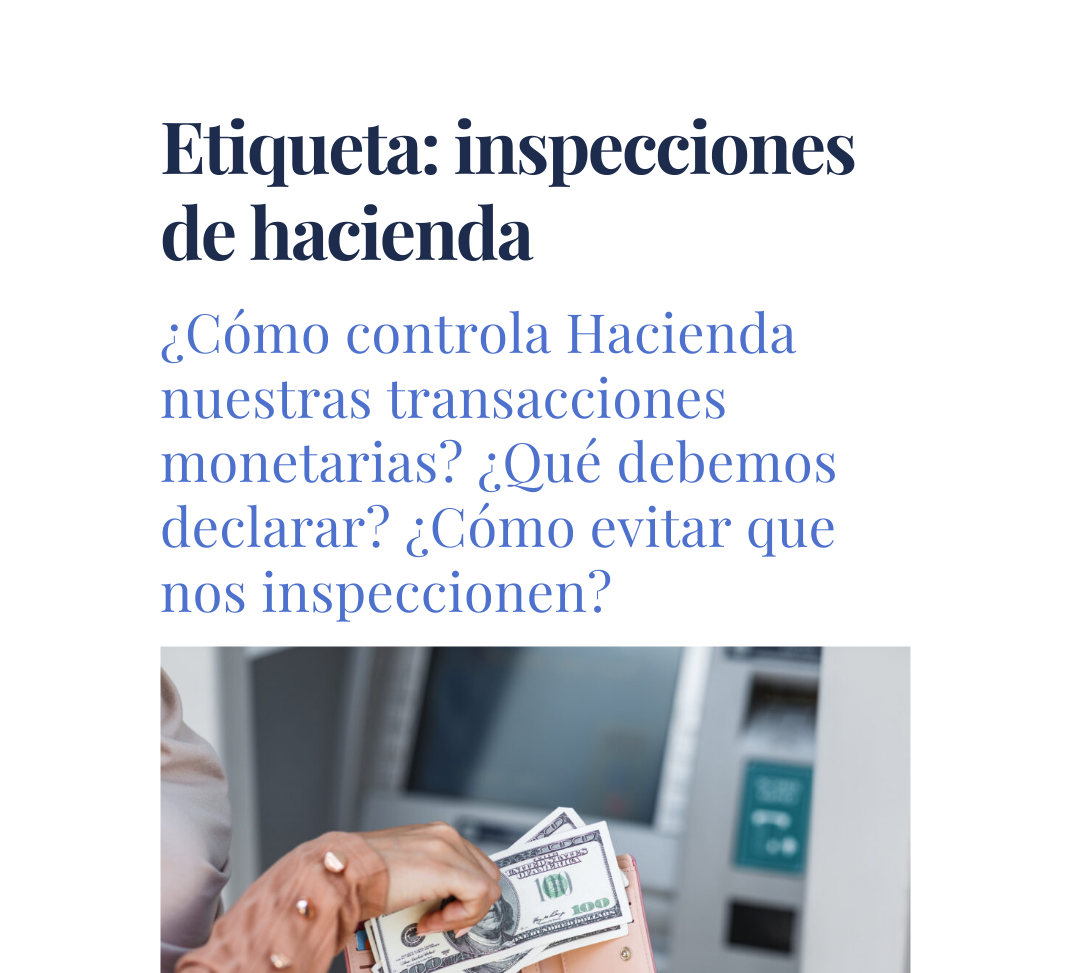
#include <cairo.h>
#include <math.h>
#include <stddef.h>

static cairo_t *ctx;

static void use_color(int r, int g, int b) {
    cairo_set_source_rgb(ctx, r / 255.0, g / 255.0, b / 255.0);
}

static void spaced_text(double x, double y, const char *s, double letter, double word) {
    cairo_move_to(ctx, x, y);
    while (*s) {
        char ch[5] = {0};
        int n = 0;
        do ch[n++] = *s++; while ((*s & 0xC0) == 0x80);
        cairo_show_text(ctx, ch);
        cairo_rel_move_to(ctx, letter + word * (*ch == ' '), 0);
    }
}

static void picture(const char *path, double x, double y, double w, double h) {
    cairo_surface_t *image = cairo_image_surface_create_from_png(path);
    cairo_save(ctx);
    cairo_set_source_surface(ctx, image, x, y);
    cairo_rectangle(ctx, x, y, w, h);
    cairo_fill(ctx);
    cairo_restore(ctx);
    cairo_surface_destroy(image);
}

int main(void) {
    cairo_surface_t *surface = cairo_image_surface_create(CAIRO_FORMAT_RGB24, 1069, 973);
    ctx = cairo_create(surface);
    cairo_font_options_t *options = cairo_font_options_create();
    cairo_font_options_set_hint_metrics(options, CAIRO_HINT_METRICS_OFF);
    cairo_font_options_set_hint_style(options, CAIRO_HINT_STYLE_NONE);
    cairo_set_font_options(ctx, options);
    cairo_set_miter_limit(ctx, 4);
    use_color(255, 255, 255);
    cairo_paint(ctx);
    cairo_select_font_face(ctx, "Playfair Display", CAIRO_FONT_SLANT_NORMAL, CAIRO_FONT_WEIGHT_BOLD);
    cairo_set_font_size(ctx, 72);
    use_color(29, 43, 77);
    spaced_text(160, 174, "Etiqueta: inspecciones", -2.25, 0);
    spaced_text(160, 260, "de hacienda", -2.25, 0);
    cairo_select_font_face(ctx, "Playfair Display", CAIRO_FONT_SLANT_NORMAL, CAIRO_FONT_WEIGHT_NORMAL);
    cairo_set_font_size(ctx, 54);
    use_color(77, 113, 204);
    spaced_text(160, 353, "¿Cómo controla Hacienda", 0.45, 0);
    spaced_text(160, 418, "nuestras transacciones", 0.45, 0);
    spaced_text(160, 482, "monetarias? ¿Qué debemos", 0.45, 0);
    spaced_text(160, 547, "declarar? ¿Cómo evitar que", 0.45, 0);
    spaced_text(160, 612, "nos inspeccionen?", 0.45, 0);
    picture("img1.png", 160, 646, 751, 327);
    cairo_surface_write_to_png(surface, "result.png");
    cairo_font_options_destroy(options);
    cairo_destroy(ctx);
    cairo_surface_destroy(surface);
    return 0;
}
